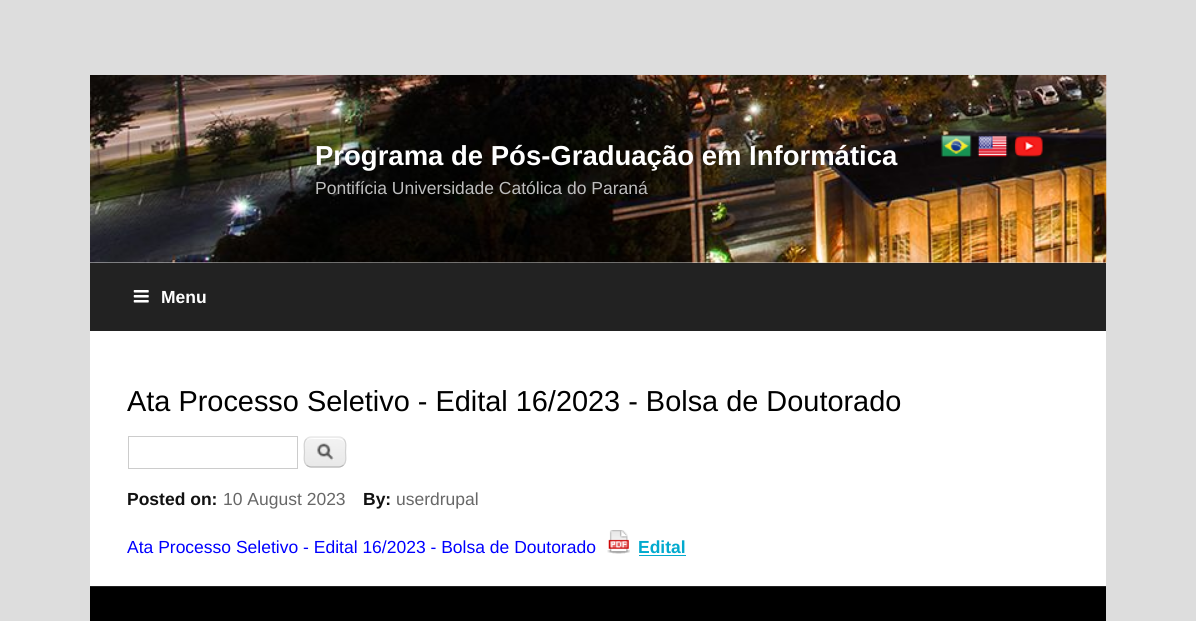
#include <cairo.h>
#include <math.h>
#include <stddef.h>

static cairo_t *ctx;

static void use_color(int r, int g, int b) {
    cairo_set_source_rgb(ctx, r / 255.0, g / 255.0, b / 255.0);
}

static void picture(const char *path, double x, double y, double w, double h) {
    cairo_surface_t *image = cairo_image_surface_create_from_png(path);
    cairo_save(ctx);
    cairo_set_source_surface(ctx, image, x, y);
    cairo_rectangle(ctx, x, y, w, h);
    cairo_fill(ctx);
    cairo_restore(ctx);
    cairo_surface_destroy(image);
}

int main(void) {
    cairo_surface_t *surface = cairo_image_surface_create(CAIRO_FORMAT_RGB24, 1196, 621);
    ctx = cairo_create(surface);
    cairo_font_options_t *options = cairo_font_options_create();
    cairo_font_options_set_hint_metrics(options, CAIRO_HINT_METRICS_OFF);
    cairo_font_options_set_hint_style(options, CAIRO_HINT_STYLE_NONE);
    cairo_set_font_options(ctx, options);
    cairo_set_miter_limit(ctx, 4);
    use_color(221, 221, 221);
    cairo_paint(ctx);
    picture("img1.png", 90, 75, 1017, 188);
    cairo_select_font_face(ctx, "Liberation Sans", CAIRO_FONT_SLANT_NORMAL, CAIRO_FONT_WEIGHT_BOLD);
    cairo_set_font_size(ctx, 27.5);
    use_color(255, 255, 255);
    cairo_move_to(ctx, 315, 165);
    cairo_show_text(ctx, "Programa de Pós-Graduação em Informática");
    cairo_select_font_face(ctx, "Liberation Sans", CAIRO_FONT_SLANT_NORMAL, CAIRO_FONT_WEIGHT_NORMAL);
    cairo_set_font_size(ctx, 17.5);
    use_color(190, 190, 190);
    cairo_move_to(ctx, 315, 194);
    cairo_show_text(ctx, "Pontifícia Universidade Católica do Paraná");
    picture("img2.png", 941, 135, 31, 22);
    picture("img3.png", 977, 135, 31, 23);
    picture("img4.png", 1014, 136, 29, 21);
    use_color(255, 255, 255);
    cairo_rectangle(ctx, 90, 331, 1016, 255);
    cairo_fill(ctx);
    use_color(34, 34, 34);
    cairo_rectangle(ctx, 90, 263, 1016, 68);
    cairo_fill(ctx);
    picture("img5.png", 133, 290, 16, 13);
    cairo_select_font_face(ctx, "Liberation Sans", CAIRO_FONT_SLANT_NORMAL, CAIRO_FONT_WEIGHT_BOLD);
    use_color(255, 255, 255);
    cairo_move_to(ctx, 161, 303);
    cairo_show_text(ctx, "Menu");
    cairo_select_font_face(ctx, "Liberation Sans", CAIRO_FONT_SLANT_NORMAL, CAIRO_FONT_WEIGHT_NORMAL);
    cairo_set_font_size(ctx, 28.9);
    use_color(0, 0, 0);
    cairo_move_to(ctx, 127, 411);
    cairo_show_text(ctx, "Ata Processo Seletivo - Edital 16/2023 - Bolsa de Doutorado");
    cairo_rectangle(ctx, 128.5, 436.5, 169, 32);
    use_color(204, 204, 204);
    cairo_set_line_width(ctx, 1);
    cairo_stroke(ctx);
    picture("img6.png", 304, 437, 42, 31);
    use_color(255, 255, 255);
    cairo_set_fill_rule(ctx, CAIRO_FILL_RULE_EVEN_ODD);
    cairo_new_path(ctx);
    cairo_move_to(ctx, 311, 439);
    cairo_line_to(ctx, 334, 439);
    cairo_curve_to(ctx, 343, 439, 345, 441, 345, 447);
    cairo_curve_to(ctx, 345, 439, 342, 438, 334, 438);
    cairo_line_to(ctx, 316, 438);
    cairo_curve_to(ctx, 308, 438, 305, 439, 305, 447);
    cairo_curve_to(ctx, 305, 443, 306, 439, 311, 439);
    cairo_close_path(ctx);
    cairo_move_to(ctx, 345, 459);
    cairo_line_to(ctx, 345, 461);
    cairo_close_path(ctx);
    cairo_move_to(ctx, 305, 462);
    cairo_line_to(ctx, 305, 459);
    cairo_close_path(ctx);
    cairo_fill(ctx);
    cairo_new_path(ctx);
    cairo_move_to(ctx, 306.5, 439);
    cairo_curve_to(ctx, 307.5, 437.5, 309.5, 437, 311, 437);
    cairo_line_to(ctx, 339, 437);
    cairo_curve_to(ctx, 340.5, 437, 342.5, 437.5, 343.5, 439);
    use_color(228, 228, 228);
    cairo_set_line_width(ctx, 1.2);
    cairo_stroke(ctx);
    cairo_new_path(ctx);
    cairo_move_to(ctx, 343.5, 439);
    cairo_curve_to(ctx, 347, 442, 345.5, 448, 345.5, 452);
    cairo_curve_to(ctx, 345.5, 456, 347, 461.5, 343.5, 465);
    use_color(210, 210, 210);
    cairo_stroke(ctx);
    cairo_new_path(ctx);
    cairo_move_to(ctx, 343.5, 465);
    cairo_curve_to(ctx, 342.5, 466, 340.5, 467, 339, 467);
    cairo_line_to(ctx, 311, 467);
    cairo_curve_to(ctx, 309.5, 467, 307.5, 466, 306.5, 465);
    use_color(180, 180, 180);
    cairo_stroke(ctx);
    cairo_new_path(ctx);
    cairo_move_to(ctx, 306.5, 465);
    cairo_curve_to(ctx, 303, 461.5, 304.5, 456, 304.5, 452);
    cairo_curve_to(ctx, 304.5, 448, 303, 442, 306.5, 439);
    use_color(210, 210, 210);
    cairo_stroke(ctx);
    cairo_select_font_face(ctx, "Liberation Sans", CAIRO_FONT_SLANT_NORMAL, CAIRO_FONT_WEIGHT_BOLD);
    cairo_set_font_size(ctx, 17.5);
    use_color(17, 17, 17);
    cairo_move_to(ctx, 127, 505);
    cairo_show_text(ctx, "Posted on:");
    cairo_select_font_face(ctx, "Liberation Sans", CAIRO_FONT_SLANT_NORMAL, CAIRO_FONT_WEIGHT_NORMAL);
    use_color(103, 103, 103);
    cairo_move_to(ctx, 223, 505);
    cairo_show_text(ctx, "10 August 2023");
    cairo_select_font_face(ctx, "Liberation Sans", CAIRO_FONT_SLANT_NORMAL, CAIRO_FONT_WEIGHT_BOLD);
    use_color(17, 17, 17);
    cairo_move_to(ctx, 363, 505);
    cairo_show_text(ctx, "By:");
    cairo_select_font_face(ctx, "Liberation Sans", CAIRO_FONT_SLANT_NORMAL, CAIRO_FONT_WEIGHT_NORMAL);
    use_color(103, 103, 103);
    cairo_move_to(ctx, 396, 505);
    cairo_show_text(ctx, "userdrupal");
    use_color(0, 0, 255);
    cairo_move_to(ctx, 127, 553);
    cairo_show_text(ctx, "Ata Processo Seletivo - Edital 16/2023 - Bolsa de Doutorado");
    picture("img7.png", 607, 530, 23, 24);
    cairo_select_font_face(ctx, "Liberation Sans", CAIRO_FONT_SLANT_NORMAL, CAIRO_FONT_WEIGHT_BOLD);
    use_color(2, 170, 206);
    cairo_move_to(ctx, 638, 553);
    cairo_show_text(ctx, "Edital");
    cairo_rectangle(ctx, 639, 555, 47, 1);
    cairo_fill(ctx);
    use_color(0, 0, 0);
    cairo_rectangle(ctx, 90, 587, 1016, 34);
    cairo_fill(ctx);
    use_color(34, 34, 34);
    cairo_rectangle(ctx, 90, 586, 1016, 1);
    cairo_fill(ctx);
    cairo_surface_write_to_png(surface, "result.png");
    cairo_font_options_destroy(options);
    cairo_destroy(ctx);
    cairo_surface_destroy(surface);
    return 0;
}
